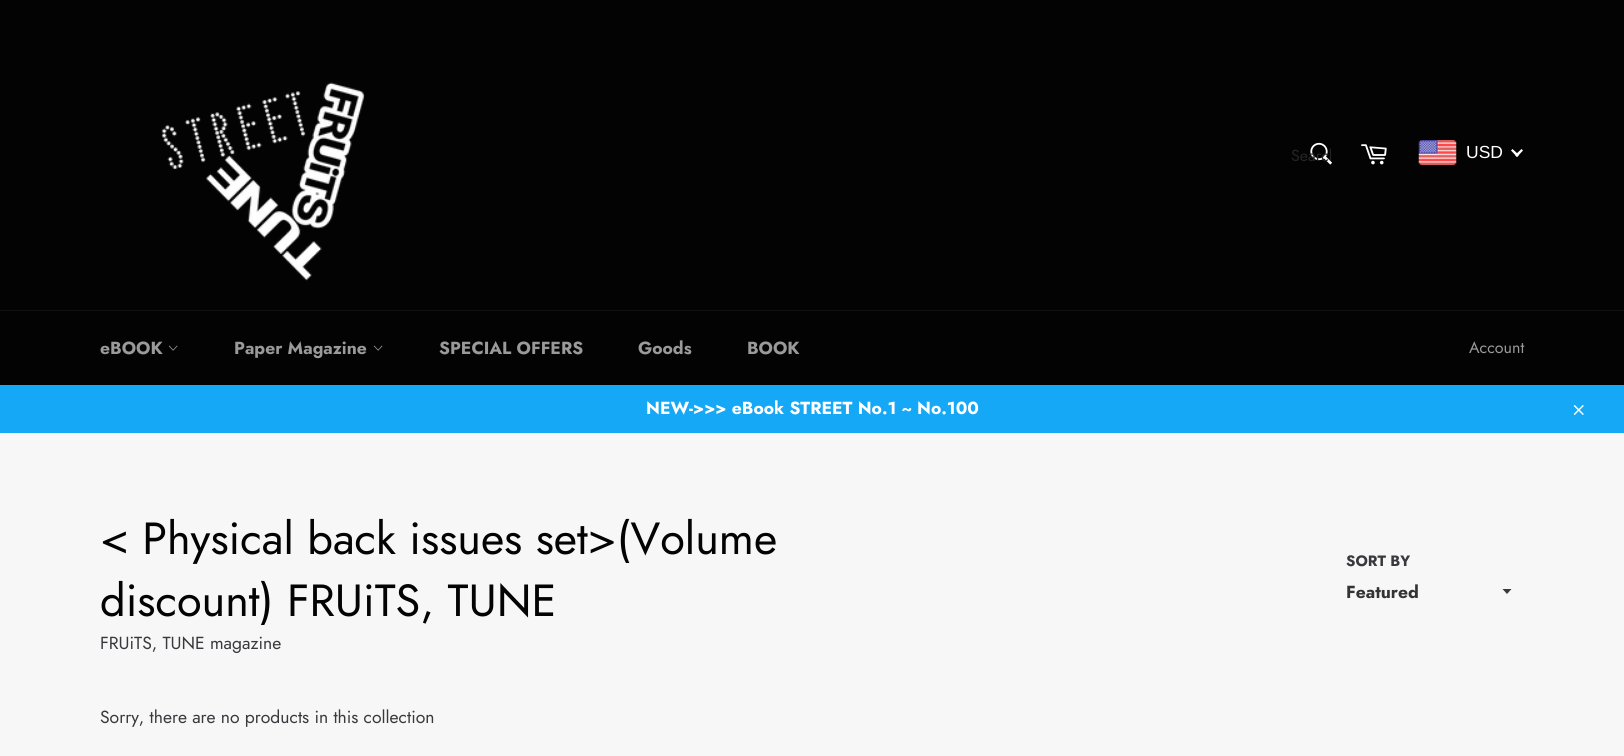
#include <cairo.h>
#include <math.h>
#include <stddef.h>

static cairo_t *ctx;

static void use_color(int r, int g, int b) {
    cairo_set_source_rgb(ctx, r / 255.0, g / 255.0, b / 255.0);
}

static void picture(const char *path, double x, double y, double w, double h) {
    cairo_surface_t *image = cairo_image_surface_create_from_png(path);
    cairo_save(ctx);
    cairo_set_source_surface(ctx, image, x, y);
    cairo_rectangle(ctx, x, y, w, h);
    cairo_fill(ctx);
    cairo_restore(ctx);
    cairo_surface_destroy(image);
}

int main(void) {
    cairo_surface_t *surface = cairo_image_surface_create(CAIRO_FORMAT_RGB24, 1624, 756);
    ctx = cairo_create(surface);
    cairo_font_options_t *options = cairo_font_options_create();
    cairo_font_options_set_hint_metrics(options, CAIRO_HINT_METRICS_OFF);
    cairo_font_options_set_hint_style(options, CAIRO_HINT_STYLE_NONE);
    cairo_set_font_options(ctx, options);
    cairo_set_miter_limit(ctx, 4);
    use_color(247, 247, 247);
    cairo_paint(ctx);
    use_color(3, 3, 3);
    cairo_rectangle(ctx, 0, 0, 1624, 310);
    cairo_fill(ctx);
    picture("img1.png", 161, 82, 204, 199);
    picture("img2.png", 1310, 142, 22, 23);
    cairo_save(ctx);
    cairo_rectangle(ctx, 1291, 144, 40, 24);
    cairo_clip(ctx);
    cairo_select_font_face(ctx, "Jost", CAIRO_FONT_SLANT_NORMAL, CAIRO_FONT_WEIGHT_NORMAL);
    cairo_set_font_size(ctx, 16);
    use_color(36, 36, 36);
    cairo_move_to(ctx, 1291, 161);
    cairo_show_text(ctx, "Search");
    cairo_restore(ctx);
    picture("img3.png", 1361, 144, 26, 21);
    picture("img4.png", 1418, 140, 39, 25);
    cairo_select_font_face(ctx, "Liberation Sans", CAIRO_FONT_SLANT_NORMAL, CAIRO_FONT_WEIGHT_NORMAL);
    cairo_set_font_size(ctx, 17.5);
    use_color(255, 255, 255);
    cairo_move_to(ctx, 1466, 158);
    cairo_show_text(ctx, "USD");
    cairo_new_path(ctx);
    cairo_move_to(ctx, 1521.5, 149);
    cairo_line_to(ctx, 1523, 150.5);
    cairo_line_to(ctx, 1517, 157);
    cairo_line_to(ctx, 1515, 155);
    cairo_close_path(ctx);
    cairo_fill(ctx);
    cairo_new_path(ctx);
    cairo_move_to(ctx, 1512.5, 149);
    cairo_line_to(ctx, 1519, 155);
    cairo_line_to(ctx, 1517, 157);
    cairo_line_to(ctx, 1511, 150.5);
    cairo_close_path(ctx);
    cairo_fill(ctx);
    use_color(3, 3, 3);
    cairo_rectangle(ctx, 0, 311, 1624, 74);
    cairo_fill(ctx);
    use_color(16, 16, 16);
    cairo_rectangle(ctx, 0, 310, 1624, 1);
    cairo_fill(ctx);
    cairo_select_font_face(ctx, "Jost", CAIRO_FONT_SLANT_NORMAL, CAIRO_FONT_WEIGHT_BOLD);
    use_color(154, 154, 154);
    cairo_move_to(ctx, 100, 354);
    cairo_show_text(ctx, "eBOOK");
    picture("img5.png", 168, 345, 10, 6);
    cairo_move_to(ctx, 234, 354);
    cairo_show_text(ctx, "Paper Magazine");
    picture("img5.png", 373, 345, 10, 6);
    cairo_move_to(ctx, 439, 354);
    cairo_show_text(ctx, "SPECIAL OFFERS");
    cairo_move_to(ctx, 638, 354);
    cairo_show_text(ctx, "Goods");
    cairo_move_to(ctx, 747, 354);
    cairo_show_text(ctx, "BOOK");
    cairo_select_font_face(ctx, "Jost", CAIRO_FONT_SLANT_NORMAL, CAIRO_FONT_WEIGHT_NORMAL);
    cairo_set_font_size(ctx, 16);
    cairo_move_to(ctx, 1469, 353);
    cairo_show_text(ctx, "Account");
    use_color(21, 168, 247);
    cairo_rectangle(ctx, 0, 385, 1624, 48);
    cairo_fill(ctx);
    cairo_select_font_face(ctx, "Jost", CAIRO_FONT_SLANT_NORMAL, CAIRO_FONT_WEIGHT_BOLD);
    cairo_set_font_size(ctx, 17.5);
    use_color(255, 255, 255);
    cairo_move_to(ctx, 646, 414);
    cairo_show_text(ctx, "NEW->>> eBook STREET No.1 ~ No.100");
    picture("img6.png", 1573, 405, 11, 10);
    cairo_select_font_face(ctx, "Jost", CAIRO_FONT_SLANT_NORMAL, CAIRO_FONT_WEIGHT_NORMAL);
    cairo_set_font_size(ctx, 45);
    use_color(3, 3, 3);
    cairo_move_to(ctx, 100, 554);
    cairo_show_text(ctx, "< Physical back issues set>(Volume");
    cairo_move_to(ctx, 100, 616);
    cairo_show_text(ctx, "discount) FRUiTS, TUNE");
    cairo_set_font_size(ctx, 17.5);
    use_color(56, 57, 61);
    cairo_move_to(ctx, 100, 649);
    cairo_show_text(ctx, "FRUiTS, TUNE magazine");
    cairo_select_font_face(ctx, "Jost", CAIRO_FONT_SLANT_NORMAL, CAIRO_FONT_WEIGHT_BOLD);
    cairo_set_font_size(ctx, 15);
    cairo_move_to(ctx, 1346, 566);
    cairo_show_text(ctx, "SORT BY");
    cairo_new_path(ctx);
    cairo_move_to(ctx, 1502.5, 589);
    cairo_line_to(ctx, 1507, 594);
    cairo_line_to(ctx, 1511.5, 589);
    cairo_close_path(ctx);
    cairo_fill(ctx);
    cairo_set_font_size(ctx, 17.5);
    use_color(51, 51, 51);
    cairo_move_to(ctx, 1346, 598);
    cairo_show_text(ctx, "Featured");
    cairo_select_font_face(ctx, "Jost", CAIRO_FONT_SLANT_NORMAL, CAIRO_FONT_WEIGHT_NORMAL);
    use_color(56, 57, 61);
    cairo_move_to(ctx, 100, 723);
    cairo_show_text(ctx, "Sorry, there are no products in this collection");
    cairo_surface_write_to_png(surface, "result.png");
    cairo_font_options_destroy(options);
    cairo_destroy(ctx);
    cairo_surface_destroy(surface);
    return 0;
}
